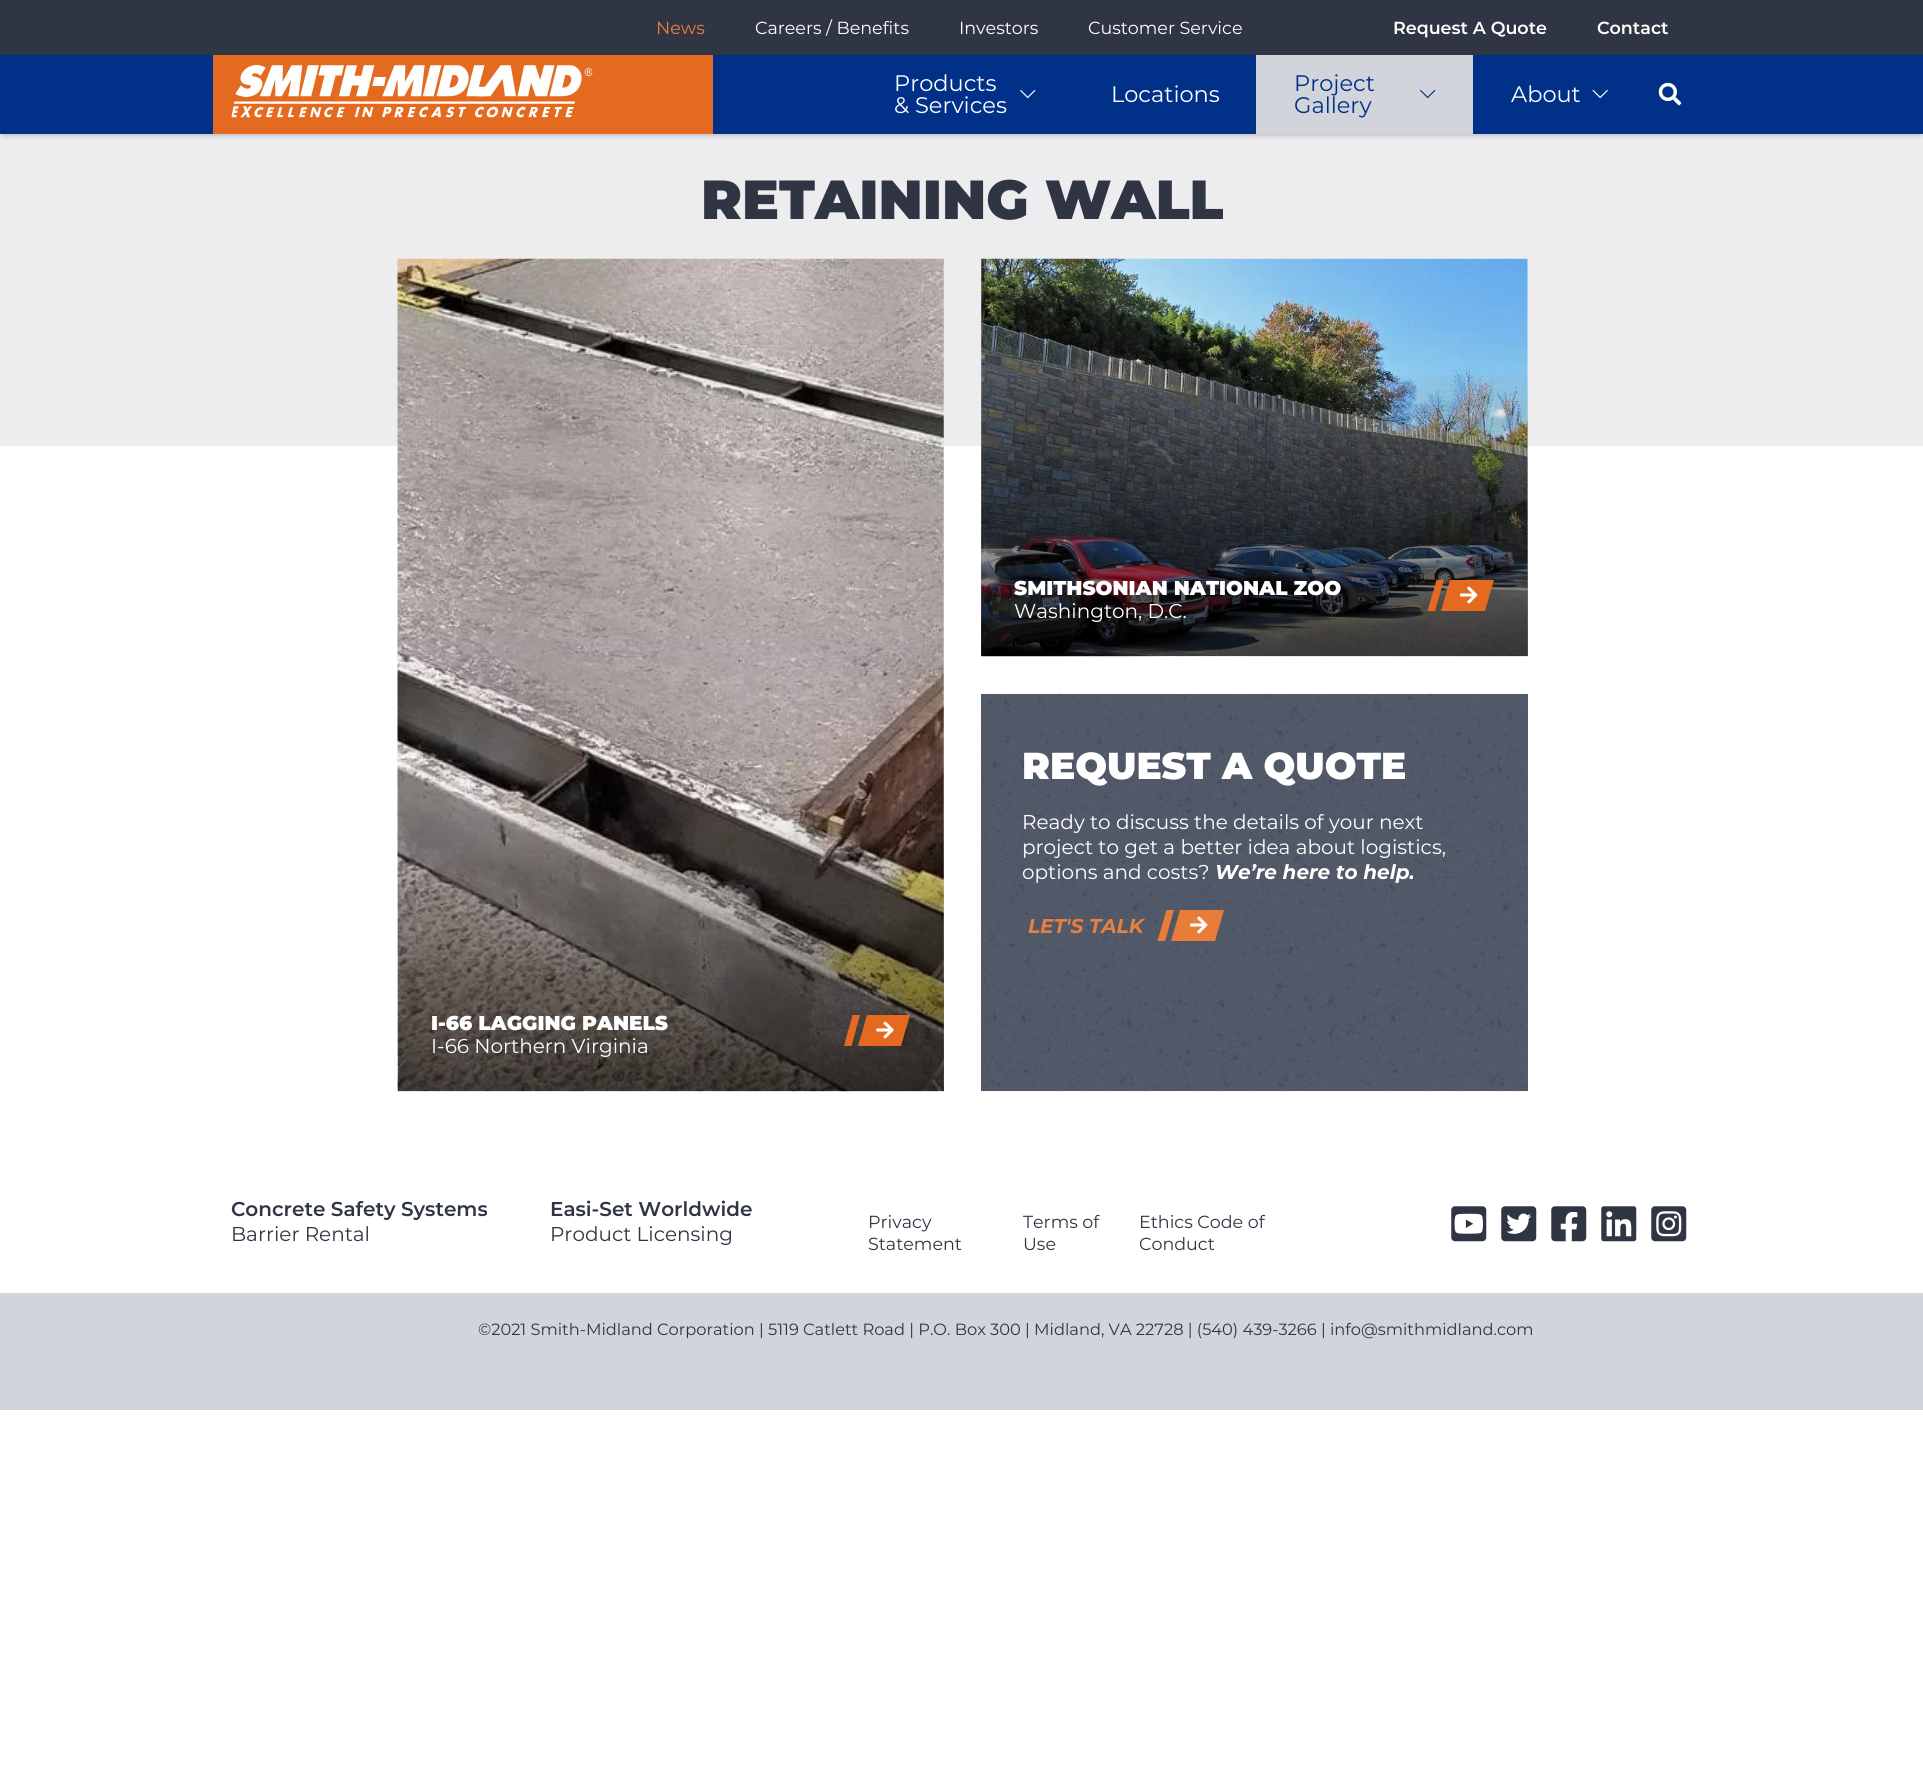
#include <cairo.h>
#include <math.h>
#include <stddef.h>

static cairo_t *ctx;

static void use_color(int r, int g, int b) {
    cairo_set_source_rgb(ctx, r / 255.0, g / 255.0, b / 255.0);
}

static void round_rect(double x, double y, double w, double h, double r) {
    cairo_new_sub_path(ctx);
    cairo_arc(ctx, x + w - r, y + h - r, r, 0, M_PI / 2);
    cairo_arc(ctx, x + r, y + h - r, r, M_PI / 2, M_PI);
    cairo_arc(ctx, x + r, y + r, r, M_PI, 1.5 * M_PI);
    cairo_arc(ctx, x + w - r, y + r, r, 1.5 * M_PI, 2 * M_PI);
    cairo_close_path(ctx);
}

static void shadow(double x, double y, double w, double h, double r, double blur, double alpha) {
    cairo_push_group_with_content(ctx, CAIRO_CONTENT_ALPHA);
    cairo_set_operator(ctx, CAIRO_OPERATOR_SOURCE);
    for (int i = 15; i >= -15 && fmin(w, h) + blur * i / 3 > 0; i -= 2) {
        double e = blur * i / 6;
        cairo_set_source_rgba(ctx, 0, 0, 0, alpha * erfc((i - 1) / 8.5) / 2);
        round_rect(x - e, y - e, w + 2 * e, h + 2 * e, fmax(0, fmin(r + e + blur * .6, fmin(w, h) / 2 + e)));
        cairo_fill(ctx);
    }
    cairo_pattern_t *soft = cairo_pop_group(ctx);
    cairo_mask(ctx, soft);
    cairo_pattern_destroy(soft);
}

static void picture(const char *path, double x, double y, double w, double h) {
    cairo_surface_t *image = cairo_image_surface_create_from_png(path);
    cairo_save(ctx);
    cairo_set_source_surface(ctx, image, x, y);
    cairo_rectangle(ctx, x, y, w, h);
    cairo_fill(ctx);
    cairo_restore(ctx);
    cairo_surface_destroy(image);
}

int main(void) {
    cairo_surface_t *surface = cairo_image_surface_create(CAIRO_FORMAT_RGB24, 1923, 1773);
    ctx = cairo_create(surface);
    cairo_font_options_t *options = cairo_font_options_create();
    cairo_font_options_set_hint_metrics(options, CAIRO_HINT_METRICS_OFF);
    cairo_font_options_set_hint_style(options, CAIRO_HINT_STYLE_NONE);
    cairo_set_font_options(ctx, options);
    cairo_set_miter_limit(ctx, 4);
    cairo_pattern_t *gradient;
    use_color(255, 255, 255);
    cairo_paint(ctx);
    use_color(86, 94, 109);
    cairo_rectangle(ctx, 981, 694, 547, 397);
    cairo_fill(ctx);
    use_color(237, 237, 240);
    cairo_rectangle(ctx, 0, 134, 1923, 312);
    cairo_fill(ctx);
    use_color(0, 0, 0);
    shadow(3, 6, 1918, 129, 0, 3, 0.25);
    use_color(48, 53, 67);
    cairo_rectangle(ctx, 0, 0, 1923, 55);
    cairo_fill(ctx);
    cairo_select_font_face(ctx, "Montserrat", CAIRO_FONT_SLANT_NORMAL, CAIRO_FONT_WEIGHT_NORMAL);
    cairo_set_font_size(ctx, 17.5);
    use_color(231, 128, 64);
    cairo_move_to(ctx, 656, 34);
    cairo_show_text(ctx, "News");
    use_color(255, 255, 255);
    cairo_move_to(ctx, 755, 34);
    cairo_show_text(ctx, "Careers / Benefits");
    cairo_move_to(ctx, 959, 34);
    cairo_show_text(ctx, "Investors");
    cairo_move_to(ctx, 1088, 34);
    cairo_show_text(ctx, "Customer Service");
    cairo_select_font_face(ctx, "Montserrat SemiBold", CAIRO_FONT_SLANT_NORMAL, CAIRO_FONT_WEIGHT_NORMAL);
    cairo_move_to(ctx, 1393, 34);
    cairo_show_text(ctx, "Request A Quote");
    cairo_move_to(ctx, 1597, 34);
    cairo_show_text(ctx, "Contact");
    use_color(0, 48, 135);
    cairo_rectangle(ctx, 0, 55, 1923, 79);
    cairo_fill(ctx);
    use_color(227, 106, 31);
    cairo_rectangle(ctx, 213, 55, 500, 79);
    cairo_fill(ctx);
    picture("img1.png", 231, 65, 362, 53);
    cairo_select_font_face(ctx, "Montserrat", CAIRO_FONT_SLANT_NORMAL, CAIRO_FONT_WEIGHT_NORMAL);
    cairo_set_font_size(ctx, 22.5);
    use_color(255, 255, 255);
    cairo_move_to(ctx, 894, 91);
    cairo_show_text(ctx, "Products");
    cairo_move_to(ctx, 894, 113);
    cairo_show_text(ctx, "& Services");
    picture("img2.png", 1020, 89, 16, 10);
    cairo_move_to(ctx, 1111, 102);
    cairo_show_text(ctx, "Locations");
    use_color(210, 212, 219);
    cairo_rectangle(ctx, 1256, 55, 217, 79);
    cairo_fill(ctx);
    use_color(0, 48, 135);
    cairo_move_to(ctx, 1294, 91);
    cairo_show_text(ctx, "Project");
    cairo_move_to(ctx, 1294, 113);
    cairo_show_text(ctx, "Gallery");
    picture("img3.png", 1420, 89, 16, 10);
    use_color(255, 255, 255);
    cairo_move_to(ctx, 1511, 102);
    cairo_show_text(ctx, "About");
    picture("img4.png", 1592, 89, 16, 10);
    picture("img5.png", 1658, 82, 24, 24);
    cairo_select_font_face(ctx, "Montserrat Black", CAIRO_FONT_SLANT_NORMAL, CAIRO_FONT_WEIGHT_NORMAL);
    cairo_set_font_size(ctx, 55);
    use_color(48, 53, 67);
    cairo_move_to(ctx, 701, 219);
    cairo_show_text(ctx, "RETAINING WALL");
    picture("img6.png", 981, 258, 547, 399);
    gradient = cairo_pattern_create_linear(1254, 365, 1254, 656);
    cairo_pattern_add_color_stop_rgba(gradient, 0, 0, 0, 0, 0);
    cairo_pattern_add_color_stop_rgba(gradient, 1, 0, 0, 0, 0.65);
    cairo_set_source(ctx, gradient);
    cairo_pattern_destroy(gradient);
    cairo_rectangle(ctx, 981, 375, 547, 281);
    cairo_fill(ctx);
    cairo_set_font_size(ctx, 20);
    use_color(255, 255, 255);
    cairo_move_to(ctx, 1014, 595);
    cairo_show_text(ctx, "SMITHSONIAN NATIONAL ZOO");
    use_color(227, 106, 31);
    cairo_set_fill_rule(ctx, CAIRO_FILL_RULE_EVEN_ODD);
    cairo_new_path(ctx);
    cairo_move_to(ctx, 1450, 580);
    cairo_line_to(ctx, 1494, 580);
    cairo_line_to(ctx, 1485, 611);
    cairo_line_to(ctx, 1441, 611);
    cairo_close_path(ctx);
    cairo_fill(ctx);
    cairo_new_path(ctx);
    cairo_move_to(ctx, 1436.5, 580);
    cairo_line_to(ctx, 1444, 580);
    cairo_line_to(ctx, 1435, 611);
    cairo_line_to(ctx, 1427.5, 611);
    cairo_close_path(ctx);
    cairo_fill(ctx);
    picture("img7.png", 1460, 586, 18, 18);
    cairo_select_font_face(ctx, "Montserrat", CAIRO_FONT_SLANT_NORMAL, CAIRO_FONT_WEIGHT_NORMAL);
    use_color(255, 255, 255);
    cairo_move_to(ctx, 1014, 618);
    cairo_show_text(ctx, "Washington, D.C.");
    picture("img8.png", 981, 693, 547, 399);
    cairo_select_font_face(ctx, "Montserrat Black", CAIRO_FONT_SLANT_NORMAL, CAIRO_FONT_WEIGHT_NORMAL);
    cairo_set_font_size(ctx, 37.5);
    cairo_move_to(ctx, 1022, 779);
    cairo_show_text(ctx, "REQUEST A QUOTE");
    cairo_select_font_face(ctx, "Montserrat", CAIRO_FONT_SLANT_NORMAL, CAIRO_FONT_WEIGHT_NORMAL);
    cairo_set_font_size(ctx, 20);
    cairo_move_to(ctx, 1022, 829);
    cairo_show_text(ctx, "Ready to discuss the details of your next");
    cairo_move_to(ctx, 1022, 854);
    cairo_show_text(ctx, "project to get a better idea about logistics,");
    cairo_move_to(ctx, 1022, 879);
    cairo_show_text(ctx, "options and costs?");
    cairo_select_font_face(ctx, "Montserrat", CAIRO_FONT_SLANT_ITALIC, CAIRO_FONT_WEIGHT_BOLD);
    cairo_move_to(ctx, 1215, 879);
    cairo_show_text(ctx, "We’re here to help.");
    use_color(234, 124, 57);
    cairo_new_path(ctx);
    cairo_move_to(ctx, 1180, 910);
    cairo_line_to(ctx, 1224, 910);
    cairo_line_to(ctx, 1215, 941);
    cairo_line_to(ctx, 1171, 941);
    cairo_close_path(ctx);
    cairo_fill(ctx);
    cairo_new_path(ctx);
    cairo_move_to(ctx, 1166.5, 910);
    cairo_line_to(ctx, 1174, 910);
    cairo_line_to(ctx, 1165, 941);
    cairo_line_to(ctx, 1157.5, 941);
    cairo_close_path(ctx);
    cairo_fill(ctx);
    use_color(231, 128, 64);
    cairo_move_to(ctx, 1028, 933);
    cairo_show_text(ctx, "LET'S TALK");
    picture("img9.png", 1190, 916, 18, 18);
    picture("img10.png", 397, 258, 547, 834);
    gradient = cairo_pattern_create_linear(671, 800, 671, 1091);
    cairo_pattern_add_color_stop_rgba(gradient, 0, 0, 0, 0, 0);
    cairo_pattern_add_color_stop_rgba(gradient, 1, 0, 0, 0, 0.65);
    cairo_set_source(ctx, gradient);
    cairo_pattern_destroy(gradient);
    cairo_rectangle(ctx, 398, 810, 546, 281);
    cairo_fill(ctx);
    cairo_select_font_face(ctx, "Montserrat Black", CAIRO_FONT_SLANT_NORMAL, CAIRO_FONT_WEIGHT_NORMAL);
    use_color(255, 255, 255);
    cairo_move_to(ctx, 431, 1030);
    cairo_show_text(ctx, "I-66 LAGGING PANELS");
    use_color(227, 106, 31);
    cairo_new_path(ctx);
    cairo_move_to(ctx, 867, 1015);
    cairo_line_to(ctx, 910, 1015);
    cairo_line_to(ctx, 901, 1046);
    cairo_line_to(ctx, 858, 1046);
    cairo_close_path(ctx);
    cairo_fill(ctx);
    cairo_new_path(ctx);
    cairo_move_to(ctx, 852.5, 1015);
    cairo_line_to(ctx, 860, 1015);
    cairo_line_to(ctx, 851.5, 1046);
    cairo_line_to(ctx, 844, 1046);
    cairo_close_path(ctx);
    cairo_fill(ctx);
    picture("img11.png", 876, 1021, 18, 18);
    cairo_select_font_face(ctx, "Montserrat", CAIRO_FONT_SLANT_NORMAL, CAIRO_FONT_WEIGHT_NORMAL);
    use_color(255, 255, 255);
    cairo_move_to(ctx, 431, 1053);
    cairo_show_text(ctx, "I-66 Northern Virginia");
    cairo_select_font_face(ctx, "Montserrat SemiBold", CAIRO_FONT_SLANT_NORMAL, CAIRO_FONT_WEIGHT_NORMAL);
    use_color(48, 53, 67);
    cairo_move_to(ctx, 231, 1216);
    cairo_show_text(ctx, "Concrete Safety Systems");
    cairo_select_font_face(ctx, "Montserrat", CAIRO_FONT_SLANT_NORMAL, CAIRO_FONT_WEIGHT_NORMAL);
    cairo_move_to(ctx, 231, 1241);
    cairo_show_text(ctx, "Barrier Rental");
    cairo_select_font_face(ctx, "Montserrat SemiBold", CAIRO_FONT_SLANT_NORMAL, CAIRO_FONT_WEIGHT_NORMAL);
    cairo_move_to(ctx, 550, 1216);
    cairo_show_text(ctx, "Easi-Set Worldwide");
    cairo_select_font_face(ctx, "Montserrat", CAIRO_FONT_SLANT_NORMAL, CAIRO_FONT_WEIGHT_NORMAL);
    cairo_move_to(ctx, 550, 1241);
    cairo_show_text(ctx, "Product Licensing");
    cairo_set_font_size(ctx, 17.5);
    cairo_move_to(ctx, 868, 1228);
    cairo_show_text(ctx, "Privacy");
    cairo_move_to(ctx, 868, 1250);
    cairo_show_text(ctx, "Statement");
    cairo_move_to(ctx, 1023, 1228);
    cairo_show_text(ctx, "Terms of");
    cairo_move_to(ctx, 1023, 1250);
    cairo_show_text(ctx, "Use");
    cairo_move_to(ctx, 1139, 1228);
    cairo_show_text(ctx, "Ethics Code of");
    cairo_move_to(ctx, 1139, 1250);
    cairo_show_text(ctx, "Conduct");
    picture("img12.png", 1451, 1206, 36, 36);
    picture("img13.png", 1501, 1206, 36, 36);
    picture("img14.png", 1551, 1206, 36, 36);
    picture("img15.png", 1601, 1206, 36, 36);
    picture("img16.png", 1651, 1206, 36, 36);
    use_color(210, 212, 219);
    cairo_rectangle(ctx, 0, 1293, 1923, 117);
    cairo_fill(ctx);
    cairo_set_font_size(ctx, 16.25);
    use_color(48, 53, 67);
    cairo_move_to(ctx, 478, 1335);
    cairo_show_text(ctx, "©2021 Smith-Midland Corporation | 5119 Catlett Road | P.O. Box 300 | Midland, VA 22728 | (540) 439-3266 | info@smithmidland.com");
    cairo_surface_write_to_png(surface, "result.png");
    cairo_font_options_destroy(options);
    cairo_destroy(ctx);
    cairo_surface_destroy(surface);
    return 0;
}
